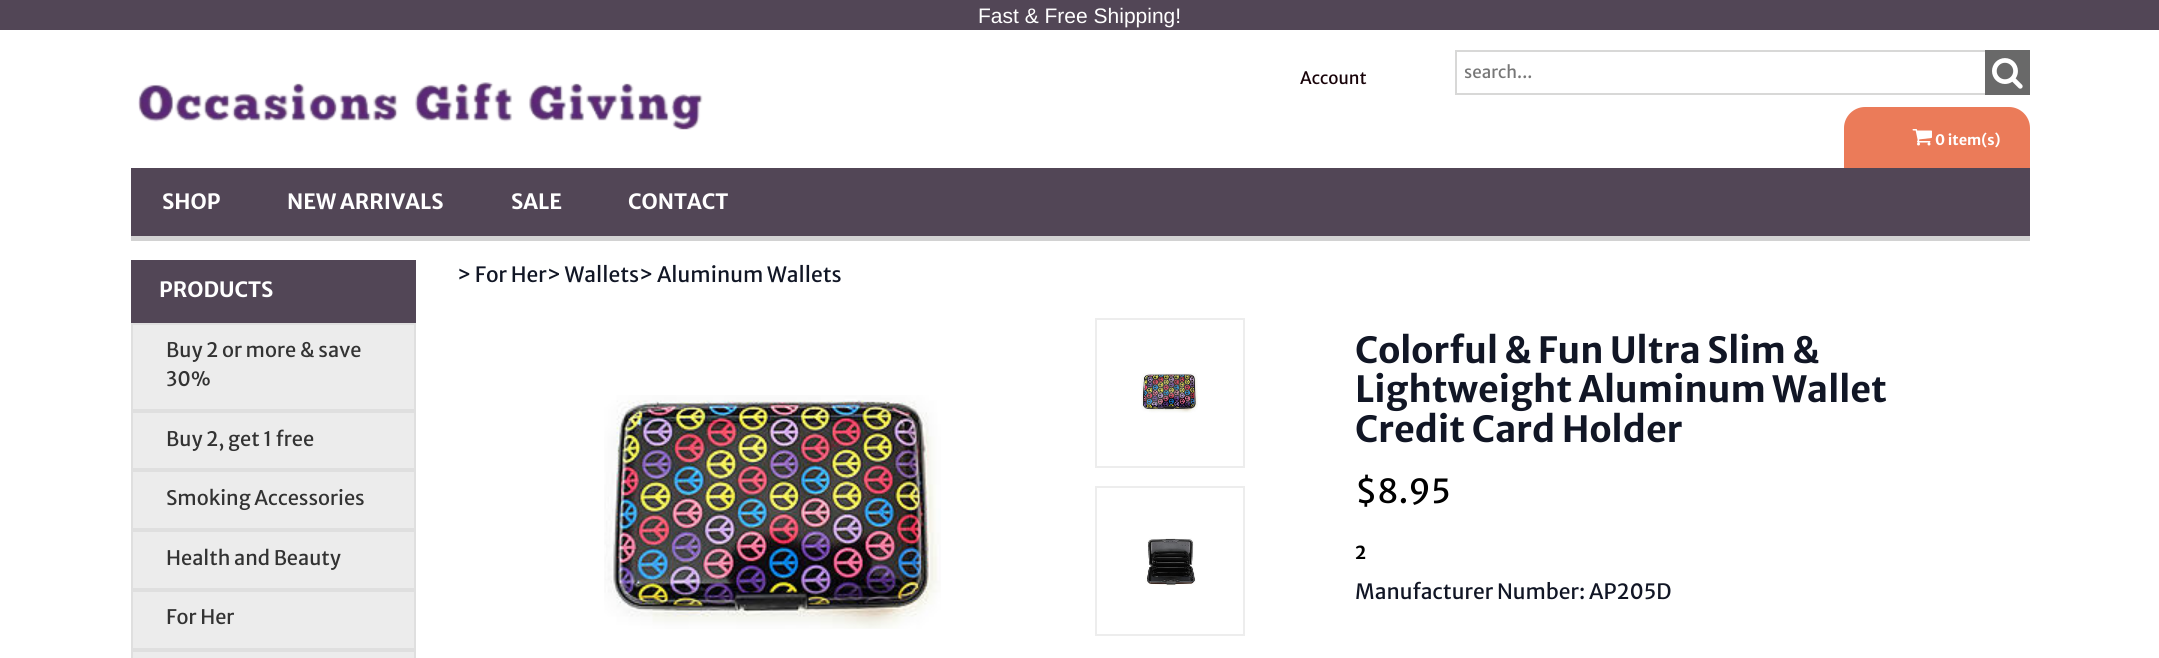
#include <cairo.h>
#include <math.h>
#include <stddef.h>

static cairo_t *ctx;

static void use_color(int r, int g, int b) {
    cairo_set_source_rgb(ctx, r / 255.0, g / 255.0, b / 255.0);
}

static void picture(const char *path, double x, double y, double w, double h) {
    cairo_surface_t *image = cairo_image_surface_create_from_png(path);
    cairo_save(ctx);
    cairo_set_source_surface(ctx, image, x, y);
    cairo_rectangle(ctx, x, y, w, h);
    cairo_fill(ctx);
    cairo_restore(ctx);
    cairo_surface_destroy(image);
}

int main(void) {
    cairo_surface_t *surface = cairo_image_surface_create(CAIRO_FORMAT_RGB24, 2159, 658);
    ctx = cairo_create(surface);
    cairo_font_options_t *options = cairo_font_options_create();
    cairo_font_options_set_hint_metrics(options, CAIRO_HINT_METRICS_OFF);
    cairo_font_options_set_hint_style(options, CAIRO_HINT_STYLE_NONE);
    cairo_set_font_options(ctx, options);
    cairo_set_miter_limit(ctx, 4);
    use_color(255, 255, 255);
    cairo_paint(ctx);
    use_color(82, 70, 86);
    cairo_rectangle(ctx, 0, 0, 2159, 30);
    cairo_fill(ctx);
    cairo_select_font_face(ctx, "Liberation Sans", CAIRO_FONT_SLANT_NORMAL, CAIRO_FONT_WEIGHT_NORMAL);
    cairo_set_font_size(ctx, 21);
    use_color(255, 255, 255);
    cairo_move_to(ctx, 978, 23);
    cairo_show_text(ctx, "Fast & Free Shipping!");
    cairo_select_font_face(ctx, "Merriweather Sans", CAIRO_FONT_SLANT_NORMAL, CAIRO_FONT_WEIGHT_NORMAL);
    cairo_set_font_size(ctx, 17);
    use_color(24, 3, 9);
    cairo_move_to(ctx, 1300, 84);
    cairo_show_text(ctx, "Account");
    cairo_rectangle(ctx, 1456, 51, 573, 43);
    use_color(216, 216, 215);
    cairo_stroke(ctx);
    use_color(119, 119, 119);
    cairo_move_to(ctx, 1464, 78);
    cairo_show_text(ctx, "search...");
    use_color(105, 105, 105);
    cairo_rectangle(ctx, 1985, 50, 45, 45);
    cairo_fill(ctx);
    picture("img1.png", 1992, 58, 31, 31);
    picture("img2.png", 138, 82, 565, 48);
    use_color(235, 123, 89);
    cairo_new_path(ctx);
    cairo_move_to(ctx, 1865, 107);
    cairo_line_to(ctx, 2009, 107);
    cairo_curve_to(ctx, 2020.5, 107, 2030, 116.5, 2030, 128);
    cairo_line_to(ctx, 2030, 168);
    cairo_line_to(ctx, 1844, 168);
    cairo_line_to(ctx, 1844, 128);
    cairo_curve_to(ctx, 1844, 116.5, 1853.5, 107, 1865, 107);
    cairo_close_path(ctx);
    cairo_fill(ctx);
    picture("img3.png", 1912, 129, 20, 17);
    cairo_select_font_face(ctx, "Merriweather Sans", CAIRO_FONT_SLANT_NORMAL, CAIRO_FONT_WEIGHT_BOLD);
    cairo_set_font_size(ctx, 14.5);
    use_color(255, 255, 255);
    cairo_move_to(ctx, 1935, 145);
    cairo_show_text(ctx, "0 item(s)");
    use_color(82, 70, 86);
    cairo_rectangle(ctx, 131, 168, 1899, 68);
    cairo_fill(ctx);
    use_color(210, 210, 210);
    cairo_rectangle(ctx, 131, 236, 1899, 5);
    cairo_fill(ctx);
    cairo_set_font_size(ctx, 21);
    use_color(255, 255, 255);
    cairo_move_to(ctx, 162, 209);
    cairo_show_text(ctx, "SHOP");
    cairo_move_to(ctx, 287, 209);
    cairo_show_text(ctx, "NEW ARRIVALS");
    cairo_move_to(ctx, 511, 209);
    cairo_show_text(ctx, "SALE");
    cairo_move_to(ctx, 628, 209);
    cairo_show_text(ctx, "CONTACT");
    use_color(82, 70, 86);
    cairo_rectangle(ctx, 131, 260, 285, 63);
    cairo_fill(ctx);
    use_color(255, 255, 255);
    cairo_move_to(ctx, 159, 297);
    cairo_show_text(ctx, "PRODUCTS");
    use_color(236, 236, 236);
    cairo_rectangle(ctx, 132, 324, 283, 86);
    cairo_fill_preserve(ctx);
    use_color(223, 223, 223);
    cairo_stroke(ctx);
    cairo_select_font_face(ctx, "Merriweather Sans", CAIRO_FONT_SLANT_NORMAL, CAIRO_FONT_WEIGHT_NORMAL);
    cairo_set_font_size(ctx, 20);
    use_color(51, 51, 51);
    cairo_move_to(ctx, 166, 357);
    cairo_show_text(ctx, "Buy 2 or more & save");
    cairo_move_to(ctx, 166, 386);
    cairo_show_text(ctx, "30%");
    use_color(236, 236, 236);
    cairo_rectangle(ctx, 132, 412, 283, 57);
    cairo_fill_preserve(ctx);
    use_color(223, 223, 223);
    cairo_stroke(ctx);
    use_color(51, 51, 51);
    cairo_move_to(ctx, 166, 446);
    cairo_show_text(ctx, "Buy 2, get 1 free");
    use_color(236, 236, 236);
    cairo_rectangle(ctx, 132, 471, 283, 58);
    cairo_fill_preserve(ctx);
    use_color(223, 223, 223);
    cairo_stroke(ctx);
    use_color(51, 51, 51);
    cairo_move_to(ctx, 166, 505);
    cairo_show_text(ctx, "Smoking Accessories");
    use_color(236, 236, 236);
    cairo_rectangle(ctx, 132, 531, 283, 58);
    cairo_fill_preserve(ctx);
    use_color(223, 223, 223);
    cairo_stroke(ctx);
    use_color(51, 51, 51);
    cairo_move_to(ctx, 166, 565);
    cairo_show_text(ctx, "Health and Beauty");
    use_color(236, 236, 236);
    cairo_rectangle(ctx, 132, 591, 283, 58);
    cairo_fill_preserve(ctx);
    use_color(223, 223, 223);
    cairo_stroke(ctx);
    use_color(51, 51, 51);
    cairo_move_to(ctx, 166, 624);
    cairo_show_text(ctx, "For Her");
    use_color(236, 236, 236);
    cairo_rectangle(ctx, 132, 651, 283, 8);
    cairo_fill_preserve(ctx);
    use_color(223, 223, 223);
    cairo_stroke(ctx);
    cairo_set_font_size(ctx, 21);
    use_color(17, 22, 37);
    cairo_move_to(ctx, 457, 282);
    cairo_show_text(ctx, "> For Her> Wallets> Aluminum Wallets");
    picture("img4.png", 604, 395, 337, 234);
    cairo_rectangle(ctx, 1096, 319, 148, 148);
    use_color(237, 237, 237);
    cairo_stroke(ctx);
    picture("img5.png", 1141, 373, 57, 40);
    cairo_rectangle(ctx, 1096, 487, 148, 148);
    cairo_stroke(ctx);
    picture("img6.png", 1145, 538, 51, 48);
    cairo_select_font_face(ctx, "Merriweather Sans", CAIRO_FONT_SLANT_NORMAL, CAIRO_FONT_WEIGHT_BOLD);
    cairo_set_font_size(ctx, 36);
    use_color(17, 22, 37);
    cairo_move_to(ctx, 1355, 363);
    cairo_show_text(ctx, "Colorful & Fun Ultra Slim &");
    cairo_move_to(ctx, 1355, 402);
    cairo_show_text(ctx, "Lightweight Aluminum Wallet");
    cairo_move_to(ctx, 1355, 442);
    cairo_show_text(ctx, "Credit Card Holder");
    cairo_select_font_face(ctx, "Merriweather Sans", CAIRO_FONT_SLANT_NORMAL, CAIRO_FONT_WEIGHT_NORMAL);
    cairo_set_font_size(ctx, 33);
    use_color(0, 0, 0);
    cairo_move_to(ctx, 1355, 503);
    cairo_show_text(ctx, "$8.95");
    cairo_select_font_face(ctx, "Merriweather Sans", CAIRO_FONT_SLANT_NORMAL, CAIRO_FONT_WEIGHT_BOLD);
    cairo_set_font_size(ctx, 18);
    cairo_move_to(ctx, 1355, 559);
    cairo_show_text(ctx, "2");
    cairo_select_font_face(ctx, "Merriweather Sans", CAIRO_FONT_SLANT_NORMAL, CAIRO_FONT_WEIGHT_NORMAL);
    cairo_set_font_size(ctx, 21);
    use_color(17, 22, 37);
    cairo_move_to(ctx, 1355, 599);
    cairo_show_text(ctx, "Manufacturer Number: AP205D");
    cairo_surface_write_to_png(surface, "result.png");
    cairo_font_options_destroy(options);
    cairo_destroy(ctx);
    cairo_surface_destroy(surface);
    return 0;
}
